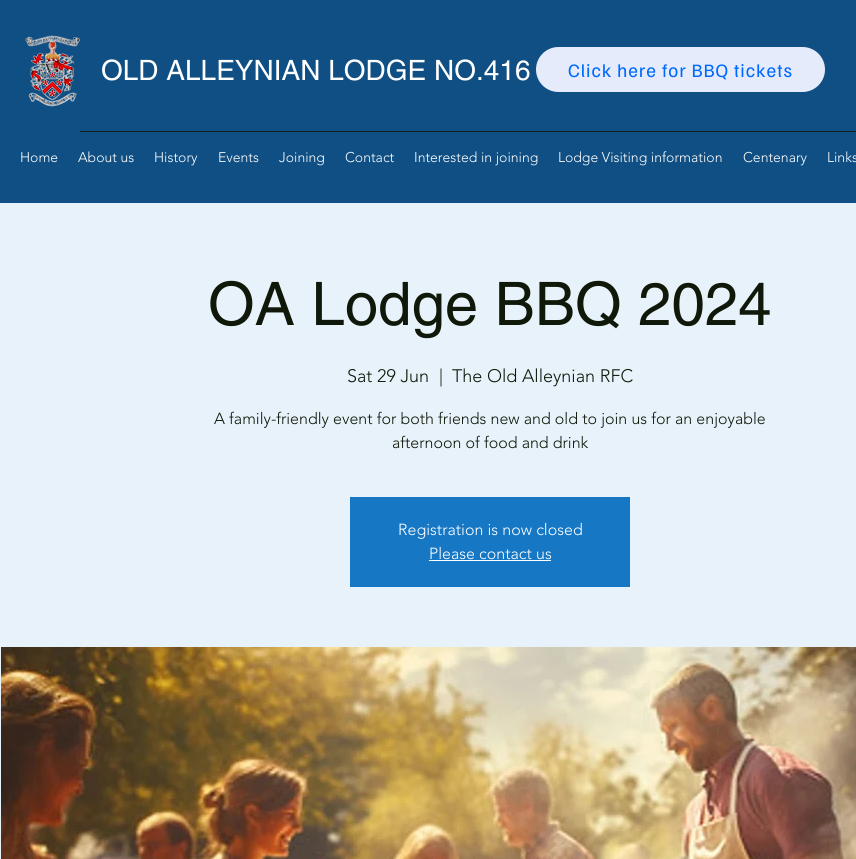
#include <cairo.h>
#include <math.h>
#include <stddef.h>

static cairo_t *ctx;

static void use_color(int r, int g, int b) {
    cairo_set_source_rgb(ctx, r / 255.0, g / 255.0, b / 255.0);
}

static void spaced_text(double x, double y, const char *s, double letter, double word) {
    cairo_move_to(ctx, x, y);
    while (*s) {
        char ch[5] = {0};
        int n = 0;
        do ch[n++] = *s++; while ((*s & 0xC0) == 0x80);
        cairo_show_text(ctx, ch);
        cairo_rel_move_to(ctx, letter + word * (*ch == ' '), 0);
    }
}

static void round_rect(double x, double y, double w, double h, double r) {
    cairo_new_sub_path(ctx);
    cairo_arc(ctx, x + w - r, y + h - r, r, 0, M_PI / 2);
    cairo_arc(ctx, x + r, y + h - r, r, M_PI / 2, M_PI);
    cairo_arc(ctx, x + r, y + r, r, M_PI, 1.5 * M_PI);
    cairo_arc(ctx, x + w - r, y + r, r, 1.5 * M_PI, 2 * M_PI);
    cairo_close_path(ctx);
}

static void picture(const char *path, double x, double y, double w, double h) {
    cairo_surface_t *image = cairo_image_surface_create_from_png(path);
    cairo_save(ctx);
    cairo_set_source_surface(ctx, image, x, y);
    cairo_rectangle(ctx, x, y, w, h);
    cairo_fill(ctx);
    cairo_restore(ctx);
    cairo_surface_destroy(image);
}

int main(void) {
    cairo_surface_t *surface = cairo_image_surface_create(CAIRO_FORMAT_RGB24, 856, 859);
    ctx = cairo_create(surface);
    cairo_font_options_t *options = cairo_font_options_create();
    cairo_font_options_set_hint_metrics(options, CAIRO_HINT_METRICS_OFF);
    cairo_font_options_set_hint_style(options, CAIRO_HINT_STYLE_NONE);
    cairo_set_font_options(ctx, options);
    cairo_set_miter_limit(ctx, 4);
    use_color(232, 242, 250);
    cairo_paint(ctx);
    use_color(15, 79, 131);
    cairo_rectangle(ctx, 0, 0, 856, 203);
    cairo_fill(ctx);
    picture("img1.png", 25, 35, 55, 72);
    cairo_select_font_face(ctx, "helvetica", CAIRO_FONT_SLANT_NORMAL, CAIRO_FONT_WEIGHT_NORMAL);
    cairo_set_font_size(ctx, 28);
    use_color(255, 255, 255);
    cairo_move_to(ctx, 101, 80);
    cairo_show_text(ctx, "OLD ALLEYNIAN LODGE NO.416");
    use_color(229, 235, 250);
    round_rect(536, 47, 289, 45, 22.5);
    cairo_fill(ctx);
    cairo_select_font_face(ctx, "Familjen Grotesk", CAIRO_FONT_SLANT_NORMAL, CAIRO_FONT_WEIGHT_NORMAL);
    cairo_set_font_size(ctx, 19);
    use_color(0, 105, 255);
    spaced_text(568, 77, "Click here for BBQ tickets", 0.95, 0);
    use_color(15, 32, 27);
    cairo_rectangle(ctx, 80, 131, 776, 1);
    cairo_fill(ctx);
    cairo_select_font_face(ctx, "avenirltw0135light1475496 Light", CAIRO_FONT_SLANT_NORMAL, CAIRO_FONT_WEIGHT_NORMAL);
    cairo_set_font_size(ctx, 14);
    use_color(255, 255, 255);
    cairo_move_to(ctx, 20, 162);
    cairo_show_text(ctx, "Home");
    cairo_move_to(ctx, 78, 162);
    cairo_show_text(ctx, "About us");
    cairo_move_to(ctx, 154, 162);
    cairo_show_text(ctx, "History");
    cairo_move_to(ctx, 218, 162);
    cairo_show_text(ctx, "Events");
    cairo_move_to(ctx, 279, 162);
    cairo_show_text(ctx, "Joining");
    cairo_move_to(ctx, 345, 162);
    cairo_show_text(ctx, "Contact");
    cairo_move_to(ctx, 414, 162);
    cairo_show_text(ctx, "Interested in joining");
    cairo_move_to(ctx, 558, 162);
    cairo_show_text(ctx, "Lodge Visiting information");
    cairo_move_to(ctx, 743, 162);
    cairo_show_text(ctx, "Centenary");
    cairo_move_to(ctx, 827, 162);
    cairo_show_text(ctx, "Links");
    cairo_select_font_face(ctx, "helvetica", CAIRO_FONT_SLANT_NORMAL, CAIRO_FONT_WEIGHT_NORMAL);
    cairo_set_font_size(ctx, 60);
    use_color(15, 24, 9);
    cairo_move_to(ctx, 208, 325);
    cairo_show_text(ctx, "OA Lodge BBQ 2024");
    cairo_select_font_face(ctx, "avenirltw0135light1475496 Light", CAIRO_FONT_SLANT_NORMAL, CAIRO_FONT_WEIGHT_NORMAL);
    cairo_set_font_size(ctx, 18);
    cairo_move_to(ctx, 347, 382);
    cairo_show_text(ctx, "Sat 29 Jun");
    cairo_move_to(ctx, 439, 382);
    cairo_show_text(ctx, "|");
    cairo_move_to(ctx, 452, 382);
    cairo_show_text(ctx, "The Old Alleynian RFC");
    cairo_set_font_size(ctx, 16);
    cairo_move_to(ctx, 214, 424);
    cairo_show_text(ctx, "A family-friendly event for both friends new and old to join us for an enjoyable");
    cairo_move_to(ctx, 392, 448);
    cairo_show_text(ctx, "afternoon of food and drink");
    use_color(22, 119, 197);
    cairo_rectangle(ctx, 350, 497, 280, 90);
    cairo_fill(ctx);
    use_color(255, 255, 255);
    cairo_move_to(ctx, 398, 535);
    cairo_show_text(ctx, "Registration is now closed");
    cairo_move_to(ctx, 429, 559);
    cairo_show_text(ctx, "Please contact us");
    cairo_rectangle(ctx, 429, 560, 122, 1);
    cairo_fill(ctx);
    picture("img2.png", 1, 647, 855, 212);
    cairo_surface_write_to_png(surface, "result.png");
    cairo_font_options_destroy(options);
    cairo_destroy(ctx);
    cairo_surface_destroy(surface);
    return 0;
}
